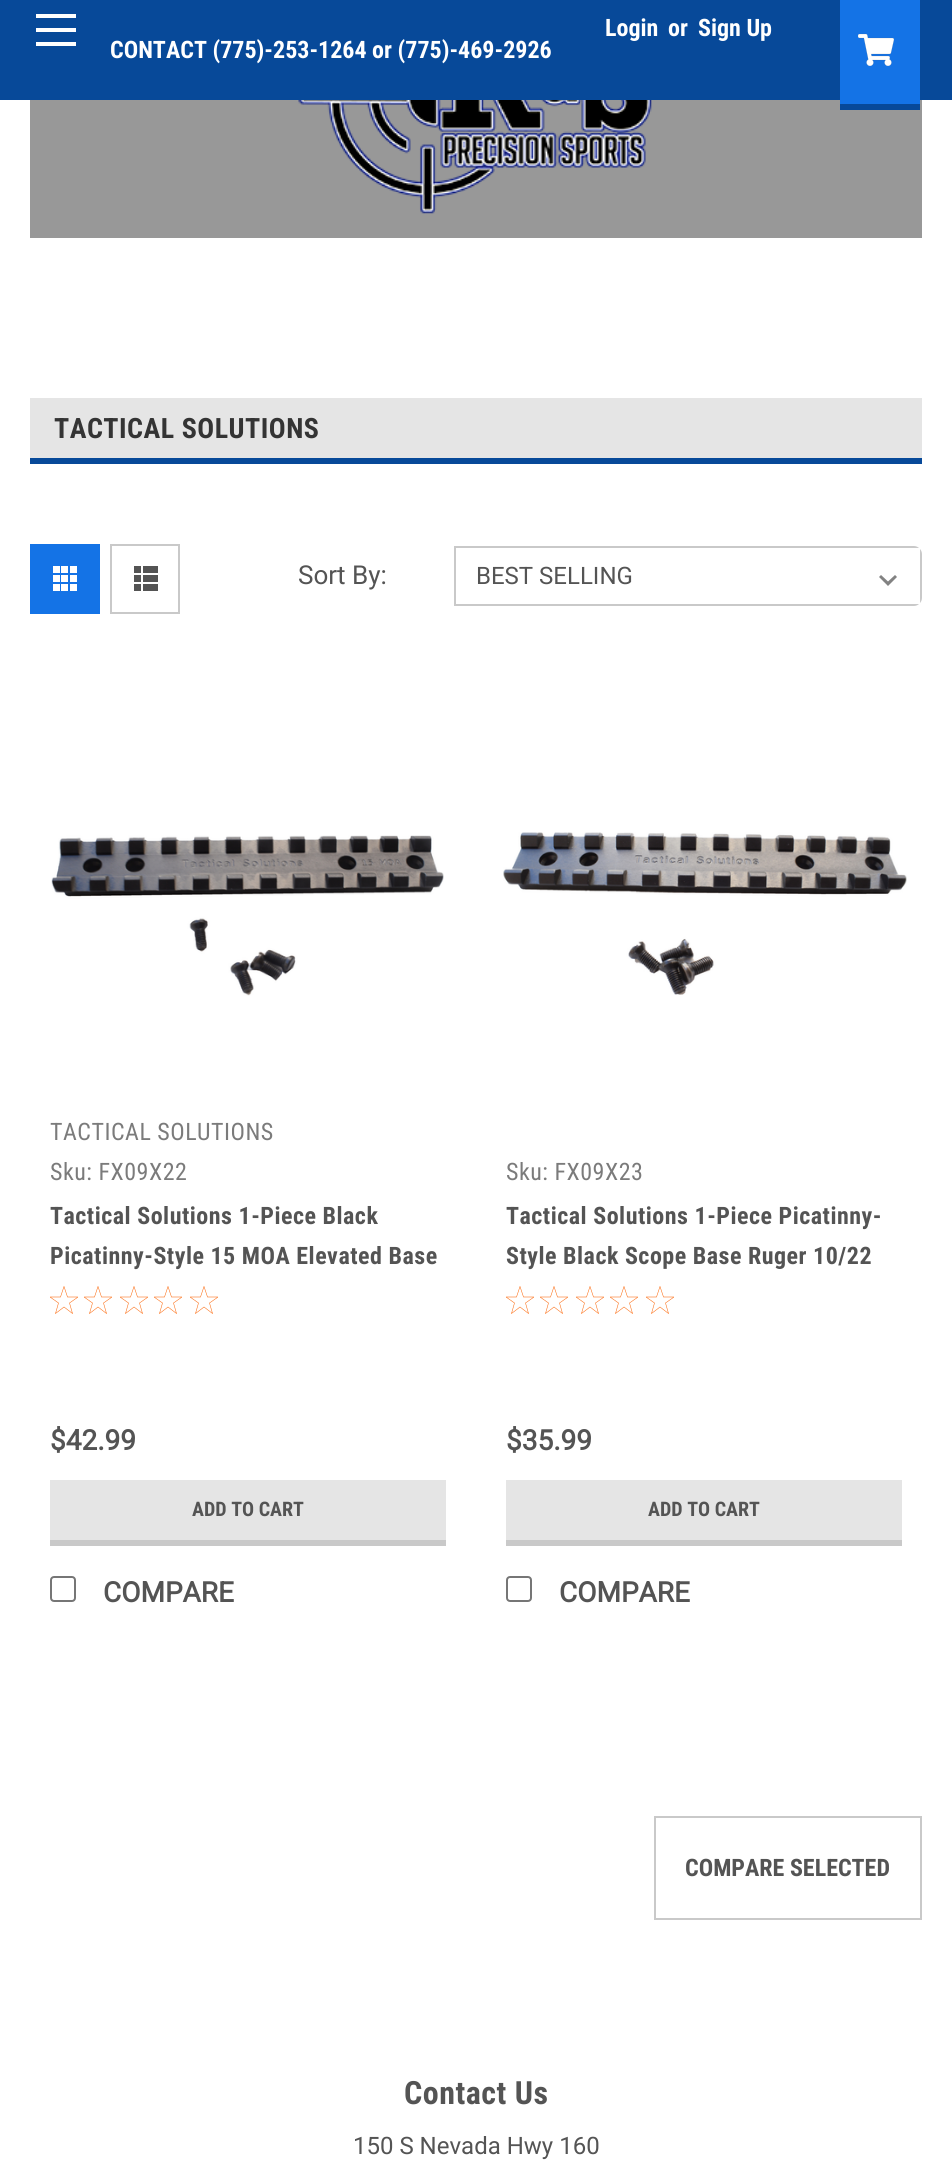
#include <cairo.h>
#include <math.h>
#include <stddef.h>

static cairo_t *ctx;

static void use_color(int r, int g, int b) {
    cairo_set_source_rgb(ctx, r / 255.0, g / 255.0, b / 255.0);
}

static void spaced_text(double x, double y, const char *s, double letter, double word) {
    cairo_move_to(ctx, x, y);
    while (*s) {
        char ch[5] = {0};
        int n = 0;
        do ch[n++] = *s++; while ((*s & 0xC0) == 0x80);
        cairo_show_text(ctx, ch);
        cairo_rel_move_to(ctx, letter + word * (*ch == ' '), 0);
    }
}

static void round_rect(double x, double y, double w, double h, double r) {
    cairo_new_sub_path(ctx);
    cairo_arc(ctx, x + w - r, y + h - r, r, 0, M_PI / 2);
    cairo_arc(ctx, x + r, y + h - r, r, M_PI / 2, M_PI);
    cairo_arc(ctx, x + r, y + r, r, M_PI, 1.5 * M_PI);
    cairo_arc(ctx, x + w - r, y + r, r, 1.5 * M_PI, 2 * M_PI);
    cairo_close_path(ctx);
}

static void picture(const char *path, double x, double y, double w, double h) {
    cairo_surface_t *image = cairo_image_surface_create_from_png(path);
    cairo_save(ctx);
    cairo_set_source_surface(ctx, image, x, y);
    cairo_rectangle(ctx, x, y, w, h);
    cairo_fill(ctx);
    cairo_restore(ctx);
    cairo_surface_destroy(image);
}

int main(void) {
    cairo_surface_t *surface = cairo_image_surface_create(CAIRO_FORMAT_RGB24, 952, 2175);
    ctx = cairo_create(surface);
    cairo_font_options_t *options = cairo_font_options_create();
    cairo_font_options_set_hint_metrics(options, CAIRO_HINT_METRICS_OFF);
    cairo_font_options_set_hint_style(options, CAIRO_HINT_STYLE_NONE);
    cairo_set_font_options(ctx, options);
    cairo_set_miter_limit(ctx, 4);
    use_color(255, 255, 255);
    cairo_paint(ctx);
    use_color(7, 73, 153);
    cairo_rectangle(ctx, 0, 0, 952, 100);
    cairo_fill(ctx);
    use_color(255, 255, 255);
    cairo_rectangle(ctx, 36, 28, 40, 4);
    cairo_fill(ctx);
    cairo_rectangle(ctx, 36, 14, 40, 4);
    cairo_fill(ctx);
    cairo_rectangle(ctx, 36, 42, 40, 4);
    cairo_fill(ctx);
    cairo_select_font_face(ctx, "Roboto Condensed", CAIRO_FONT_SLANT_NORMAL, CAIRO_FONT_WEIGHT_BOLD);
    cairo_set_font_size(ctx, 24);
    cairo_move_to(ctx, 605, 36);
    cairo_show_text(ctx, "Login");
    cairo_move_to(ctx, 668, 36);
    cairo_show_text(ctx, "or");
    cairo_move_to(ctx, 698, 36);
    cairo_show_text(ctx, "Sign Up");
    use_color(152, 152, 152);
    cairo_rectangle(ctx, 30, 100, 892, 138);
    cairo_fill(ctx);
    use_color(20, 115, 230);
    cairo_rectangle(ctx, 840, 0, 80, 104);
    cairo_fill(ctx);
    use_color(7, 73, 153);
    cairo_rectangle(ctx, 840, 104, 80, 6);
    cairo_fill(ctx);
    picture("img1.png", 858, 33, 36, 33);
    use_color(255, 255, 255);
    cairo_move_to(ctx, 110, 58);
    cairo_show_text(ctx, "CONTACT (775)-253-1264 or (775)-469-2926");
    picture("img2.png", 298, 100, 354, 114);
    use_color(229, 229, 229);
    cairo_rectangle(ctx, 30, 398, 892, 60);
    cairo_fill(ctx);
    use_color(7, 73, 153);
    cairo_rectangle(ctx, 30, 458, 892, 6);
    cairo_fill(ctx);
    cairo_set_font_size(ctx, 28);
    use_color(52, 52, 52);
    spaced_text(54, 438, "TACTICAL SOLUTIONS", 0.5, 0);
    use_color(20, 115, 230);
    cairo_rectangle(ctx, 30, 544, 70, 70);
    cairo_fill(ctx);
    picture("img3.png", 53, 566, 24, 25);
    cairo_rectangle(ctx, 111, 545, 68, 68);
    use_color(201, 201, 201);
    cairo_stroke(ctx);
    picture("img4.png", 134, 566, 24, 25);
    cairo_select_font_face(ctx, "Roboto", CAIRO_FONT_SLANT_NORMAL, CAIRO_FONT_WEIGHT_NORMAL);
    cairo_set_font_size(ctx, 26);
    use_color(84, 84, 84);
    cairo_move_to(ctx, 298, 584);
    cairo_show_text(ctx, "Sort By:");
    use_color(130, 130, 130);
    cairo_new_path(ctx);
    cairo_move_to(ctx, 895, 575);
    cairo_line_to(ctx, 888, 581.5);
    cairo_line_to(ctx, 881, 575);
    cairo_line_to(ctx, 879, 577);
    cairo_line_to(ctx, 888, 586);
    cairo_line_to(ctx, 897, 577);
    cairo_close_path(ctx);
    cairo_fill(ctx);
    use_color(201, 201, 201);
    cairo_set_fill_rule(ctx, CAIRO_FILL_RULE_EVEN_ODD);
    cairo_new_path(ctx);
    cairo_move_to(ctx, 454, 546);
    cairo_line_to(ctx, 454, 606);
    cairo_line_to(ctx, 914, 606);
    cairo_curve_to(ctx, 916, 606, 918, 605, 919, 604);
    cairo_line_to(ctx, 456, 604);
    cairo_line_to(ctx, 456, 548);
    cairo_line_to(ctx, 919, 548);
    cairo_curve_to(ctx, 918, 547, 916, 546, 914, 546);
    cairo_close_path(ctx);
    cairo_move_to(ctx, 922, 554);
    cairo_curve_to(ctx, 922, 552, 921, 550, 920, 549);
    cairo_line_to(ctx, 920, 603);
    cairo_curve_to(ctx, 921, 602, 922, 600, 922, 598);
    cairo_close_path(ctx);
    cairo_fill(ctx);
    cairo_set_font_size(ctx, 24);
    use_color(84, 84, 84);
    cairo_move_to(ctx, 476, 584);
    cairo_show_text(ctx, "BEST SELLING");
    picture("img5.png", 51, 835, 393, 161);
    cairo_select_font_face(ctx, "Roboto Condensed", CAIRO_FONT_SLANT_NORMAL, CAIRO_FONT_WEIGHT_NORMAL);
    use_color(123, 123, 123);
    spaced_text(50, 1140, "TACTICAL SOLUTIONS", 0.5, 0);
    spaced_text(50, 1180, "Sku: FX09X22", 0.5, 0);
    cairo_select_font_face(ctx, "Roboto Condensed", CAIRO_FONT_SLANT_NORMAL, CAIRO_FONT_WEIGHT_BOLD);
    use_color(84, 84, 84);
    spaced_text(50, 1224, "Tactical Solutions 1-Piece Black", 0.5, 0);
    spaced_text(50, 1264, "Picatinny-Style 15 MOA Elevated Base", 0.5, 0);
    cairo_save(ctx);
    cairo_set_fill_rule(ctx, CAIRO_FILL_RULE_WINDING);
    cairo_rectangle(ctx, 50, 1286, 28, 28);
    cairo_clip(ctx);
    cairo_new_path(ctx);
    cairo_move_to(ctx, 64, 1286.5);
    cairo_line_to(ctx, 67.5, 1297);
    cairo_line_to(ctx, 78, 1297);
    cairo_line_to(ctx, 69.5, 1303);
    cairo_line_to(ctx, 72.5, 1313.5);
    cairo_line_to(ctx, 64, 1307);
    cairo_line_to(ctx, 55.5, 1313.5);
    cairo_line_to(ctx, 58.5, 1303);
    cairo_line_to(ctx, 50, 1297);
    cairo_line_to(ctx, 60.5, 1297);
    cairo_close_path(ctx);
    use_color(252, 99, 4);
    cairo_set_line_width(ctx, 0.5);
    cairo_stroke(ctx);
    cairo_restore(ctx);
    cairo_save(ctx);
    cairo_set_fill_rule(ctx, CAIRO_FILL_RULE_WINDING);
    cairo_rectangle(ctx, 84, 1286, 28, 28);
    cairo_clip(ctx);
    cairo_new_path(ctx);
    cairo_move_to(ctx, 98, 1286.5);
    cairo_line_to(ctx, 101.5, 1297);
    cairo_line_to(ctx, 112, 1297);
    cairo_line_to(ctx, 103.5, 1303);
    cairo_line_to(ctx, 106.5, 1313.5);
    cairo_line_to(ctx, 98, 1307);
    cairo_line_to(ctx, 89.5, 1313.5);
    cairo_line_to(ctx, 92.5, 1303);
    cairo_line_to(ctx, 84, 1297);
    cairo_line_to(ctx, 94.5, 1297);
    cairo_close_path(ctx);
    use_color(252, 99, 4);
    cairo_set_line_width(ctx, 0.5);
    cairo_stroke(ctx);
    cairo_restore(ctx);
    cairo_save(ctx);
    cairo_set_fill_rule(ctx, CAIRO_FILL_RULE_WINDING);
    cairo_rectangle(ctx, 120, 1286, 28, 28);
    cairo_clip(ctx);
    cairo_new_path(ctx);
    cairo_move_to(ctx, 134, 1286.5);
    cairo_line_to(ctx, 137.5, 1297);
    cairo_line_to(ctx, 148, 1297);
    cairo_line_to(ctx, 139.5, 1303);
    cairo_line_to(ctx, 142.5, 1313.5);
    cairo_line_to(ctx, 134, 1307);
    cairo_line_to(ctx, 125.5, 1313.5);
    cairo_line_to(ctx, 128.5, 1303);
    cairo_line_to(ctx, 120, 1297);
    cairo_line_to(ctx, 130.5, 1297);
    cairo_close_path(ctx);
    use_color(252, 99, 4);
    cairo_set_line_width(ctx, 0.5);
    cairo_stroke(ctx);
    cairo_restore(ctx);
    cairo_save(ctx);
    cairo_set_fill_rule(ctx, CAIRO_FILL_RULE_WINDING);
    cairo_rectangle(ctx, 154, 1286, 28, 28);
    cairo_clip(ctx);
    cairo_new_path(ctx);
    cairo_move_to(ctx, 168, 1286.5);
    cairo_line_to(ctx, 171.5, 1297);
    cairo_line_to(ctx, 182, 1297);
    cairo_line_to(ctx, 173.5, 1303);
    cairo_line_to(ctx, 176.5, 1313.5);
    cairo_line_to(ctx, 168, 1307);
    cairo_line_to(ctx, 159.5, 1313.5);
    cairo_line_to(ctx, 162.5, 1303);
    cairo_line_to(ctx, 154, 1297);
    cairo_line_to(ctx, 164.5, 1297);
    cairo_close_path(ctx);
    use_color(252, 99, 4);
    cairo_set_line_width(ctx, 0.5);
    cairo_stroke(ctx);
    cairo_restore(ctx);
    cairo_save(ctx);
    cairo_set_fill_rule(ctx, CAIRO_FILL_RULE_WINDING);
    cairo_rectangle(ctx, 190, 1286, 28, 28);
    cairo_clip(ctx);
    cairo_new_path(ctx);
    cairo_move_to(ctx, 204, 1286.5);
    cairo_line_to(ctx, 207.5, 1297);
    cairo_line_to(ctx, 218, 1297);
    cairo_line_to(ctx, 209.5, 1303);
    cairo_line_to(ctx, 212.5, 1313.5);
    cairo_line_to(ctx, 204, 1307);
    cairo_line_to(ctx, 195.5, 1313.5);
    cairo_line_to(ctx, 198.5, 1303);
    cairo_line_to(ctx, 190, 1297);
    cairo_line_to(ctx, 200.5, 1297);
    cairo_close_path(ctx);
    use_color(252, 99, 4);
    cairo_set_line_width(ctx, 0.5);
    cairo_stroke(ctx);
    cairo_restore(ctx);
    cairo_select_font_face(ctx, "Roboto", CAIRO_FONT_SLANT_NORMAL, CAIRO_FONT_WEIGHT_BOLD);
    cairo_set_font_size(ctx, 28);
    cairo_move_to(ctx, 50, 1450);
    cairo_show_text(ctx, "$42.99");
    use_color(229, 229, 229);
    cairo_rectangle(ctx, 50, 1480, 396, 60);
    cairo_fill(ctx);
    use_color(201, 201, 201);
    cairo_rectangle(ctx, 50, 1540, 396, 6);
    cairo_fill(ctx);
    cairo_select_font_face(ctx, "Roboto Condensed", CAIRO_FONT_SLANT_NORMAL, CAIRO_FONT_WEIGHT_BOLD);
    cairo_set_font_size(ctx, 20);
    use_color(84, 84, 84);
    cairo_move_to(ctx, 192, 1516);
    cairo_show_text(ctx, "ADD TO CART");
    round_rect(51, 1577, 24, 24, 3);
    use_color(118, 118, 118);
    cairo_stroke(ctx);
    cairo_select_font_face(ctx, "Roboto", CAIRO_FONT_SLANT_NORMAL, CAIRO_FONT_WEIGHT_BOLD);
    cairo_set_font_size(ctx, 28);
    use_color(84, 84, 84);
    cairo_move_to(ctx, 103, 1602);
    cairo_show_text(ctx, "COMPARE");
    picture("img6.png", 503, 832, 404, 163);
    cairo_select_font_face(ctx, "Roboto Condensed", CAIRO_FONT_SLANT_NORMAL, CAIRO_FONT_WEIGHT_NORMAL);
    cairo_set_font_size(ctx, 24);
    use_color(123, 123, 123);
    spaced_text(506, 1180, "Sku: FX09X23", 0.5, 0);
    cairo_select_font_face(ctx, "Roboto Condensed", CAIRO_FONT_SLANT_NORMAL, CAIRO_FONT_WEIGHT_BOLD);
    use_color(84, 84, 84);
    spaced_text(506, 1224, "Tactical Solutions 1-Piece Picatinny-", 0.5, 0);
    spaced_text(506, 1264, "Style Black Scope Base Ruger 10/22", 0.5, 0);
    cairo_save(ctx);
    cairo_set_fill_rule(ctx, CAIRO_FILL_RULE_WINDING);
    cairo_rectangle(ctx, 506, 1286, 28, 28);
    cairo_clip(ctx);
    cairo_new_path(ctx);
    cairo_move_to(ctx, 520, 1286.5);
    cairo_line_to(ctx, 523.5, 1297);
    cairo_line_to(ctx, 534, 1297);
    cairo_line_to(ctx, 525.5, 1303);
    cairo_line_to(ctx, 528.5, 1313.5);
    cairo_line_to(ctx, 520, 1307);
    cairo_line_to(ctx, 511.5, 1313.5);
    cairo_line_to(ctx, 514.5, 1303);
    cairo_line_to(ctx, 506, 1297);
    cairo_line_to(ctx, 516.5, 1297);
    cairo_close_path(ctx);
    use_color(252, 99, 4);
    cairo_set_line_width(ctx, 0.5);
    cairo_stroke(ctx);
    cairo_restore(ctx);
    cairo_save(ctx);
    cairo_set_fill_rule(ctx, CAIRO_FILL_RULE_WINDING);
    cairo_rectangle(ctx, 540, 1286, 28, 28);
    cairo_clip(ctx);
    cairo_new_path(ctx);
    cairo_move_to(ctx, 554, 1286.5);
    cairo_line_to(ctx, 557.5, 1297);
    cairo_line_to(ctx, 568, 1297);
    cairo_line_to(ctx, 559.5, 1303);
    cairo_line_to(ctx, 562.5, 1313.5);
    cairo_line_to(ctx, 554, 1307);
    cairo_line_to(ctx, 545.5, 1313.5);
    cairo_line_to(ctx, 548.5, 1303);
    cairo_line_to(ctx, 540, 1297);
    cairo_line_to(ctx, 550.5, 1297);
    cairo_close_path(ctx);
    use_color(252, 99, 4);
    cairo_set_line_width(ctx, 0.5);
    cairo_stroke(ctx);
    cairo_restore(ctx);
    cairo_save(ctx);
    cairo_set_fill_rule(ctx, CAIRO_FILL_RULE_WINDING);
    cairo_rectangle(ctx, 576, 1286, 28, 28);
    cairo_clip(ctx);
    cairo_new_path(ctx);
    cairo_move_to(ctx, 590, 1286.5);
    cairo_line_to(ctx, 593.5, 1297);
    cairo_line_to(ctx, 604, 1297);
    cairo_line_to(ctx, 595.5, 1303);
    cairo_line_to(ctx, 598.5, 1313.5);
    cairo_line_to(ctx, 590, 1307);
    cairo_line_to(ctx, 581.5, 1313.5);
    cairo_line_to(ctx, 584.5, 1303);
    cairo_line_to(ctx, 576, 1297);
    cairo_line_to(ctx, 586.5, 1297);
    cairo_close_path(ctx);
    use_color(252, 99, 4);
    cairo_set_line_width(ctx, 0.5);
    cairo_stroke(ctx);
    cairo_restore(ctx);
    cairo_save(ctx);
    cairo_set_fill_rule(ctx, CAIRO_FILL_RULE_WINDING);
    cairo_rectangle(ctx, 610, 1286, 28, 28);
    cairo_clip(ctx);
    cairo_new_path(ctx);
    cairo_move_to(ctx, 624, 1286.5);
    cairo_line_to(ctx, 627.5, 1297);
    cairo_line_to(ctx, 638, 1297);
    cairo_line_to(ctx, 629.5, 1303);
    cairo_line_to(ctx, 632.5, 1313.5);
    cairo_line_to(ctx, 624, 1307);
    cairo_line_to(ctx, 615.5, 1313.5);
    cairo_line_to(ctx, 618.5, 1303);
    cairo_line_to(ctx, 610, 1297);
    cairo_line_to(ctx, 620.5, 1297);
    cairo_close_path(ctx);
    use_color(252, 99, 4);
    cairo_set_line_width(ctx, 0.5);
    cairo_stroke(ctx);
    cairo_restore(ctx);
    cairo_save(ctx);
    cairo_set_fill_rule(ctx, CAIRO_FILL_RULE_WINDING);
    cairo_rectangle(ctx, 646, 1286, 28, 28);
    cairo_clip(ctx);
    cairo_new_path(ctx);
    cairo_move_to(ctx, 660, 1286.5);
    cairo_line_to(ctx, 663.5, 1297);
    cairo_line_to(ctx, 674, 1297);
    cairo_line_to(ctx, 665.5, 1303);
    cairo_line_to(ctx, 668.5, 1313.5);
    cairo_line_to(ctx, 660, 1307);
    cairo_line_to(ctx, 651.5, 1313.5);
    cairo_line_to(ctx, 654.5, 1303);
    cairo_line_to(ctx, 646, 1297);
    cairo_line_to(ctx, 656.5, 1297);
    cairo_close_path(ctx);
    use_color(252, 99, 4);
    cairo_set_line_width(ctx, 0.5);
    cairo_stroke(ctx);
    cairo_restore(ctx);
    cairo_select_font_face(ctx, "Roboto", CAIRO_FONT_SLANT_NORMAL, CAIRO_FONT_WEIGHT_BOLD);
    cairo_set_font_size(ctx, 28);
    cairo_move_to(ctx, 506, 1450);
    cairo_show_text(ctx, "$35.99");
    use_color(229, 229, 229);
    cairo_rectangle(ctx, 506, 1480, 396, 60);
    cairo_fill(ctx);
    use_color(201, 201, 201);
    cairo_rectangle(ctx, 506, 1540, 396, 6);
    cairo_fill(ctx);
    cairo_select_font_face(ctx, "Roboto Condensed", CAIRO_FONT_SLANT_NORMAL, CAIRO_FONT_WEIGHT_BOLD);
    cairo_set_font_size(ctx, 20);
    use_color(84, 84, 84);
    cairo_move_to(ctx, 648, 1516);
    cairo_show_text(ctx, "ADD TO CART");
    round_rect(507, 1577, 24, 24, 3);
    use_color(118, 118, 118);
    cairo_stroke(ctx);
    cairo_select_font_face(ctx, "Roboto", CAIRO_FONT_SLANT_NORMAL, CAIRO_FONT_WEIGHT_BOLD);
    cairo_set_font_size(ctx, 28);
    use_color(84, 84, 84);
    cairo_move_to(ctx, 559, 1602);
    cairo_show_text(ctx, "COMPARE");
    cairo_rectangle(ctx, 655, 1817, 266, 102);
    use_color(201, 201, 201);
    cairo_stroke(ctx);
    cairo_select_font_face(ctx, "Roboto Condensed", CAIRO_FONT_SLANT_NORMAL, CAIRO_FONT_WEIGHT_BOLD);
    cairo_set_font_size(ctx, 24);
    use_color(84, 84, 84);
    cairo_move_to(ctx, 685, 1876);
    cairo_show_text(ctx, "COMPARE SELECTED");
    cairo_set_font_size(ctx, 32);
    spaced_text(404, 2104, "Contact Us", 0.5, 0);
    cairo_select_font_face(ctx, "Roboto", CAIRO_FONT_SLANT_NORMAL, CAIRO_FONT_WEIGHT_NORMAL);
    cairo_set_font_size(ctx, 24);
    cairo_move_to(ctx, 353, 2154);
    cairo_show_text(ctx, "150 S Nevada Hwy 160");
    cairo_surface_write_to_png(surface, "result.png");
    cairo_font_options_destroy(options);
    cairo_destroy(ctx);
    cairo_surface_destroy(surface);
    return 0;
}
